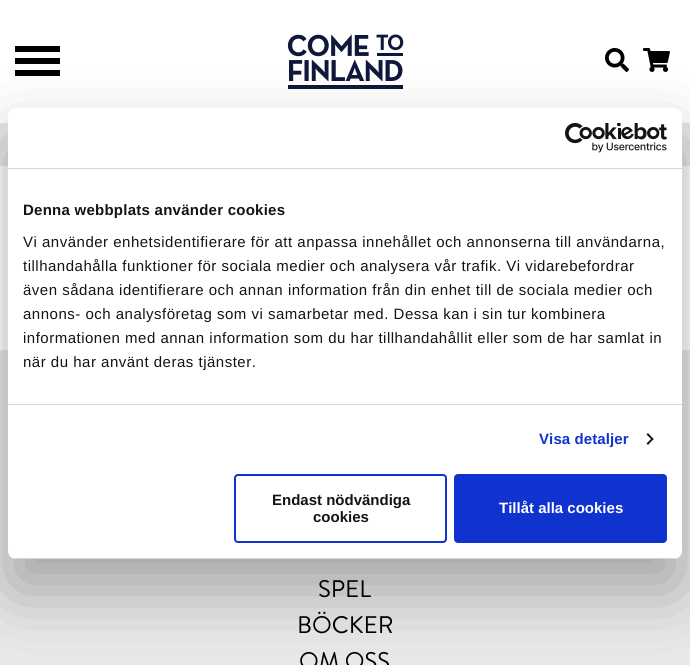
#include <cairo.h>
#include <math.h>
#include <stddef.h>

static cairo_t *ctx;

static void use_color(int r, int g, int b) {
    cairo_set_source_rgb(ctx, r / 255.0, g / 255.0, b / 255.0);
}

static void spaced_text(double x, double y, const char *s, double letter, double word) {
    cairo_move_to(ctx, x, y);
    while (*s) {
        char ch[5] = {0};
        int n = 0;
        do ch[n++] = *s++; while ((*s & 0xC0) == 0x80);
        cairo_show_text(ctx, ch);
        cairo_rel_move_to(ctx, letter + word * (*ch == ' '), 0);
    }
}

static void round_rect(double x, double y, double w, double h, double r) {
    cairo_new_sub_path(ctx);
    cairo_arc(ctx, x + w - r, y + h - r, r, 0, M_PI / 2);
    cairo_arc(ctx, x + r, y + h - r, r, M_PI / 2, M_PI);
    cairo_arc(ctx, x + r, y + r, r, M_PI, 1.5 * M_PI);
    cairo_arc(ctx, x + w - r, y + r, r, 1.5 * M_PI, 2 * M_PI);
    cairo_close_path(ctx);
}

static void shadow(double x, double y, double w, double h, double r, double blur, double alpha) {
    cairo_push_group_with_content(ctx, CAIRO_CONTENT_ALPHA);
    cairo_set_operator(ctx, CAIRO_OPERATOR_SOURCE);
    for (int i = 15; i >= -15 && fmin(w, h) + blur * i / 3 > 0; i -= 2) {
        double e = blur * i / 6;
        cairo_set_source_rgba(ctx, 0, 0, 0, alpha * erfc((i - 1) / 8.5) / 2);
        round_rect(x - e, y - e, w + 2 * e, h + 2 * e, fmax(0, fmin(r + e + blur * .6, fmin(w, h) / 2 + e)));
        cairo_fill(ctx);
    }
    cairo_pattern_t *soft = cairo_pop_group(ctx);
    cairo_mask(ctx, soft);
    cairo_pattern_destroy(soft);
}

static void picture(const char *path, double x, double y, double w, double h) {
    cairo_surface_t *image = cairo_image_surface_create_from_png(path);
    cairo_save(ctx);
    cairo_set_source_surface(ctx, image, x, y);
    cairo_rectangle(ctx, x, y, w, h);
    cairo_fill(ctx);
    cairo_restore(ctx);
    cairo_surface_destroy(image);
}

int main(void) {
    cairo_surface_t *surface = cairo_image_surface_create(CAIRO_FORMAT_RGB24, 690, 665);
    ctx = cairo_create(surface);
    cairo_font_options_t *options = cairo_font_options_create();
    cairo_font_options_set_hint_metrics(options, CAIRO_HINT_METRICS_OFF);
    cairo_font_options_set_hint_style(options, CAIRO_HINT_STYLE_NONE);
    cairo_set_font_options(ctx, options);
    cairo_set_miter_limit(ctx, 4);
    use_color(255, 255, 255);
    cairo_paint(ctx);
    use_color(0, 0, 0);
    cairo_rectangle(ctx, 15, 46, 45, 6);
    cairo_fill(ctx);
    cairo_rectangle(ctx, 15, 58, 45, 6);
    cairo_fill(ctx);
    cairo_rectangle(ctx, 15, 70, 45, 6);
    cairo_fill(ctx);
    picture("img2.png", 287, 34, 117, 55);
    picture("img3.png", 605, 48, 24, 24);
    picture("img4.png", 643, 48, 27, 24);
    use_color(233, 233, 233);
    cairo_rectangle(ctx, 0, 123, 690, 43);
    cairo_fill(ctx);
    cairo_rectangle(ctx, 0, 350, 690, 315);
    cairo_fill(ctx);
    use_color(0, 0, 0);
    shadow(8, 140, 674, 451, 8, 34, 0.3);
    use_color(255, 255, 255);
    round_rect(8, 108, 674, 451, 8);
    cairo_fill(ctx);
    use_color(214, 214, 214);
    cairo_rectangle(ctx, 8, 168, 674, 1);
    cairo_fill(ctx);
    picture("img1.png", 565, 123, 102, 30);
    cairo_rectangle(ctx, 8, 404, 674, 1);
    cairo_fill(ctx);
    cairo_select_font_face(ctx, "Liberation Sans", CAIRO_FONT_SLANT_NORMAL, CAIRO_FONT_WEIGHT_BOLD);
    cairo_set_font_size(ctx, 15);
    use_color(20, 20, 20);
    spaced_text(23, 215, "Denna webbplats använder cookies", 0.25, 0);
    cairo_select_font_face(ctx, "Liberation Sans", CAIRO_FONT_SLANT_NORMAL, CAIRO_FONT_WEIGHT_NORMAL);
    spaced_text(23, 247, "Vi använder enhetsidentifierare för att anpassa innehållet och annonserna till användarna,", 0.5, 0);
    spaced_text(23, 271, "tillhandahålla funktioner för sociala medier och analysera vår trafik. Vi vidarebefordrar", 0.5, 0);
    spaced_text(23, 295, "även sådana identifierare och annan information från din enhet till de sociala medier och", 0.5, 0);
    spaced_text(23, 319, "annons- och analysföretag som vi samarbetar med. Dessa kan i sin tur kombinera", 0.5, 0);
    spaced_text(23, 343, "informationen med annan information som du har tillhandahållit eller som de har samlat in", 0.5, 0);
    spaced_text(23, 367, "när du har använt deras tjänster.", 0.5, 0);
    cairo_select_font_face(ctx, "Liberation Sans", CAIRO_FONT_SLANT_NORMAL, CAIRO_FONT_WEIGHT_BOLD);
    use_color(16, 50, 207);
    spaced_text(539, 444, "Visa detaljer", 0.1, 0);
    use_color(20, 20, 20);
    cairo_new_path(ctx);
    cairo_move_to(ctx, 648, 433);
    cairo_line_to(ctx, 653.5, 439);
    cairo_line_to(ctx, 652.5, 440.5);
    cairo_line_to(ctx, 646.5, 434.5);
    cairo_close_path(ctx);
    cairo_fill(ctx);
    cairo_new_path(ctx);
    cairo_move_to(ctx, 652.5, 437.5);
    cairo_line_to(ctx, 653.5, 439);
    cairo_line_to(ctx, 648, 445);
    cairo_line_to(ctx, 646.5, 443.5);
    cairo_close_path(ctx);
    cairo_fill(ctx);
    cairo_save(ctx);
    round_rect(8, 108, 674, 451, 8);
    cairo_clip(ctx);
    use_color(214, 214, 214);
    cairo_rectangle(ctx, 8, 558, 674, 1);
    cairo_fill(ctx);
    cairo_restore(ctx);
    round_rect(235, 475, 211, 67, 3);
    use_color(16, 50, 207);
    cairo_stroke(ctx);
    use_color(20, 20, 20);
    cairo_move_to(ctx, 272, 505);
    cairo_show_text(ctx, "Endast nödvändiga");
    cairo_move_to(ctx, 313, 522);
    cairo_show_text(ctx, "cookies");
    use_color(16, 50, 207);
    round_rect(455, 475, 211, 67, 3);
    cairo_fill_preserve(ctx);
    cairo_stroke(ctx);
    use_color(255, 255, 255);
    cairo_move_to(ctx, 499, 513);
    cairo_show_text(ctx, "Tillåt alla cookies");
    cairo_select_font_face(ctx, "Brandon Grotesque", CAIRO_FONT_SLANT_NORMAL, CAIRO_FONT_WEIGHT_NORMAL);
    cairo_set_font_size(ctx, 24);
    use_color(0, 0, 0);
    cairo_move_to(ctx, 318, 597);
    cairo_show_text(ctx, "SPEL");
    cairo_move_to(ctx, 297, 633);
    cairo_show_text(ctx, "BÖCKER");
    cairo_move_to(ctx, 299, 669);
    cairo_show_text(ctx, "OM OSS");
    cairo_surface_write_to_png(surface, "result.png");
    cairo_font_options_destroy(options);
    cairo_destroy(ctx);
    cairo_surface_destroy(surface);
    return 0;
}
